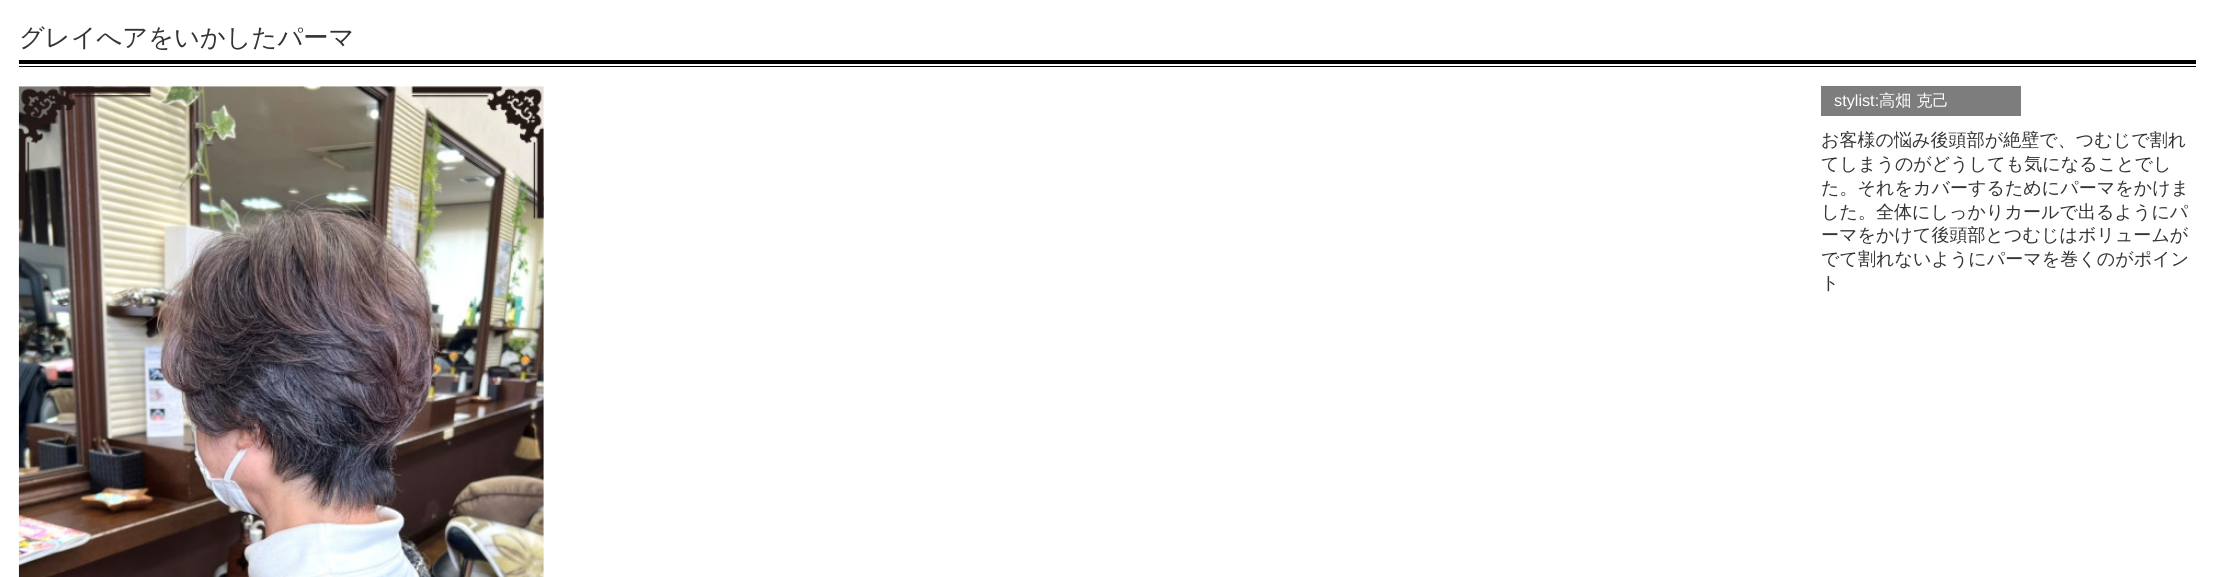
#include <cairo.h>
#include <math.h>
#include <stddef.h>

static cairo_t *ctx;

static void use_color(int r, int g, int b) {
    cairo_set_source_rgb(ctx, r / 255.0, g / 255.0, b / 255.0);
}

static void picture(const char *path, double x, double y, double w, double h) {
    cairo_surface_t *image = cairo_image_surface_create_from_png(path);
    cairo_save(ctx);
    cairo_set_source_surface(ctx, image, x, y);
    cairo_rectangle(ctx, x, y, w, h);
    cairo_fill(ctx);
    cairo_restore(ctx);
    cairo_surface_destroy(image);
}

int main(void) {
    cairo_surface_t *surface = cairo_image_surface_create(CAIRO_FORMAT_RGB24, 2214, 577);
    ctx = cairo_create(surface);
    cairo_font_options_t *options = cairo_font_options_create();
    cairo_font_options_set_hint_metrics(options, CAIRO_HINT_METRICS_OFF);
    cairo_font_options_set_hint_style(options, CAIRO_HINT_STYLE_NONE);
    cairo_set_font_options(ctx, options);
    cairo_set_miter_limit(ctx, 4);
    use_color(255, 255, 255);
    cairo_paint(ctx);
    use_color(0, 0, 0);
    cairo_rectangle(ctx, 19, 66, 2177, 1);
    cairo_fill(ctx);
    cairo_rectangle(ctx, 19, 60, 2177, 4);
    cairo_fill(ctx);
    cairo_select_font_face(ctx, "WenQuanYi Zen Hei Medium", CAIRO_FONT_SLANT_NORMAL, CAIRO_FONT_WEIGHT_NORMAL);
    cairo_set_font_size(ctx, 25.25);
    use_color(51, 51, 51);
    cairo_move_to(ctx, 19, 46);
    cairo_show_text(ctx, "グレイへアをいかしたパーマ");
    picture("img1.png", 18, 86, 526, 491);
    picture("img2.png", 18, 86, 526, 133);
    use_color(125, 125, 125);
    cairo_rectangle(ctx, 1821, 86, 200, 30);
    cairo_fill(ctx);
    cairo_select_font_face(ctx, "Liberation Sans", CAIRO_FONT_SLANT_NORMAL, CAIRO_FONT_WEIGHT_NORMAL);
    cairo_set_font_size(ctx, 16.25);
    use_color(255, 255, 255);
    cairo_move_to(ctx, 1834, 106);
    cairo_show_text(ctx, "stylist:");
    cairo_select_font_face(ctx, "WenQuanYi Zen Hei Medium", CAIRO_FONT_SLANT_NORMAL, CAIRO_FONT_WEIGHT_NORMAL);
    cairo_move_to(ctx, 1879, 106);
    cairo_show_text(ctx, "高畑 克己");
    cairo_set_font_size(ctx, 18.05);
    use_color(51, 51, 51);
    cairo_move_to(ctx, 1821, 146);
    cairo_show_text(ctx, "お客様の悩み後頭部が絶壁で、つむじで割れ");
    cairo_move_to(ctx, 1821, 170);
    cairo_show_text(ctx, "てしまうのがどうしても気になることでし");
    cairo_move_to(ctx, 1821, 194);
    cairo_show_text(ctx, "た。それをカバーするためにパーマをかけま");
    cairo_move_to(ctx, 1821, 218);
    cairo_show_text(ctx, "した。全体にしっかりカールで出るようにパ");
    cairo_move_to(ctx, 1821, 241);
    cairo_show_text(ctx, "ーマをかけて後頭部とつむじはボリュームが");
    cairo_move_to(ctx, 1821, 265);
    cairo_show_text(ctx, "でて割れないようにパーマを巻くのがポイン");
    cairo_move_to(ctx, 1821, 289);
    cairo_show_text(ctx, "ト");
    cairo_surface_write_to_png(surface, "result.png");
    cairo_font_options_destroy(options);
    cairo_destroy(ctx);
    cairo_surface_destroy(surface);
    return 0;
}
